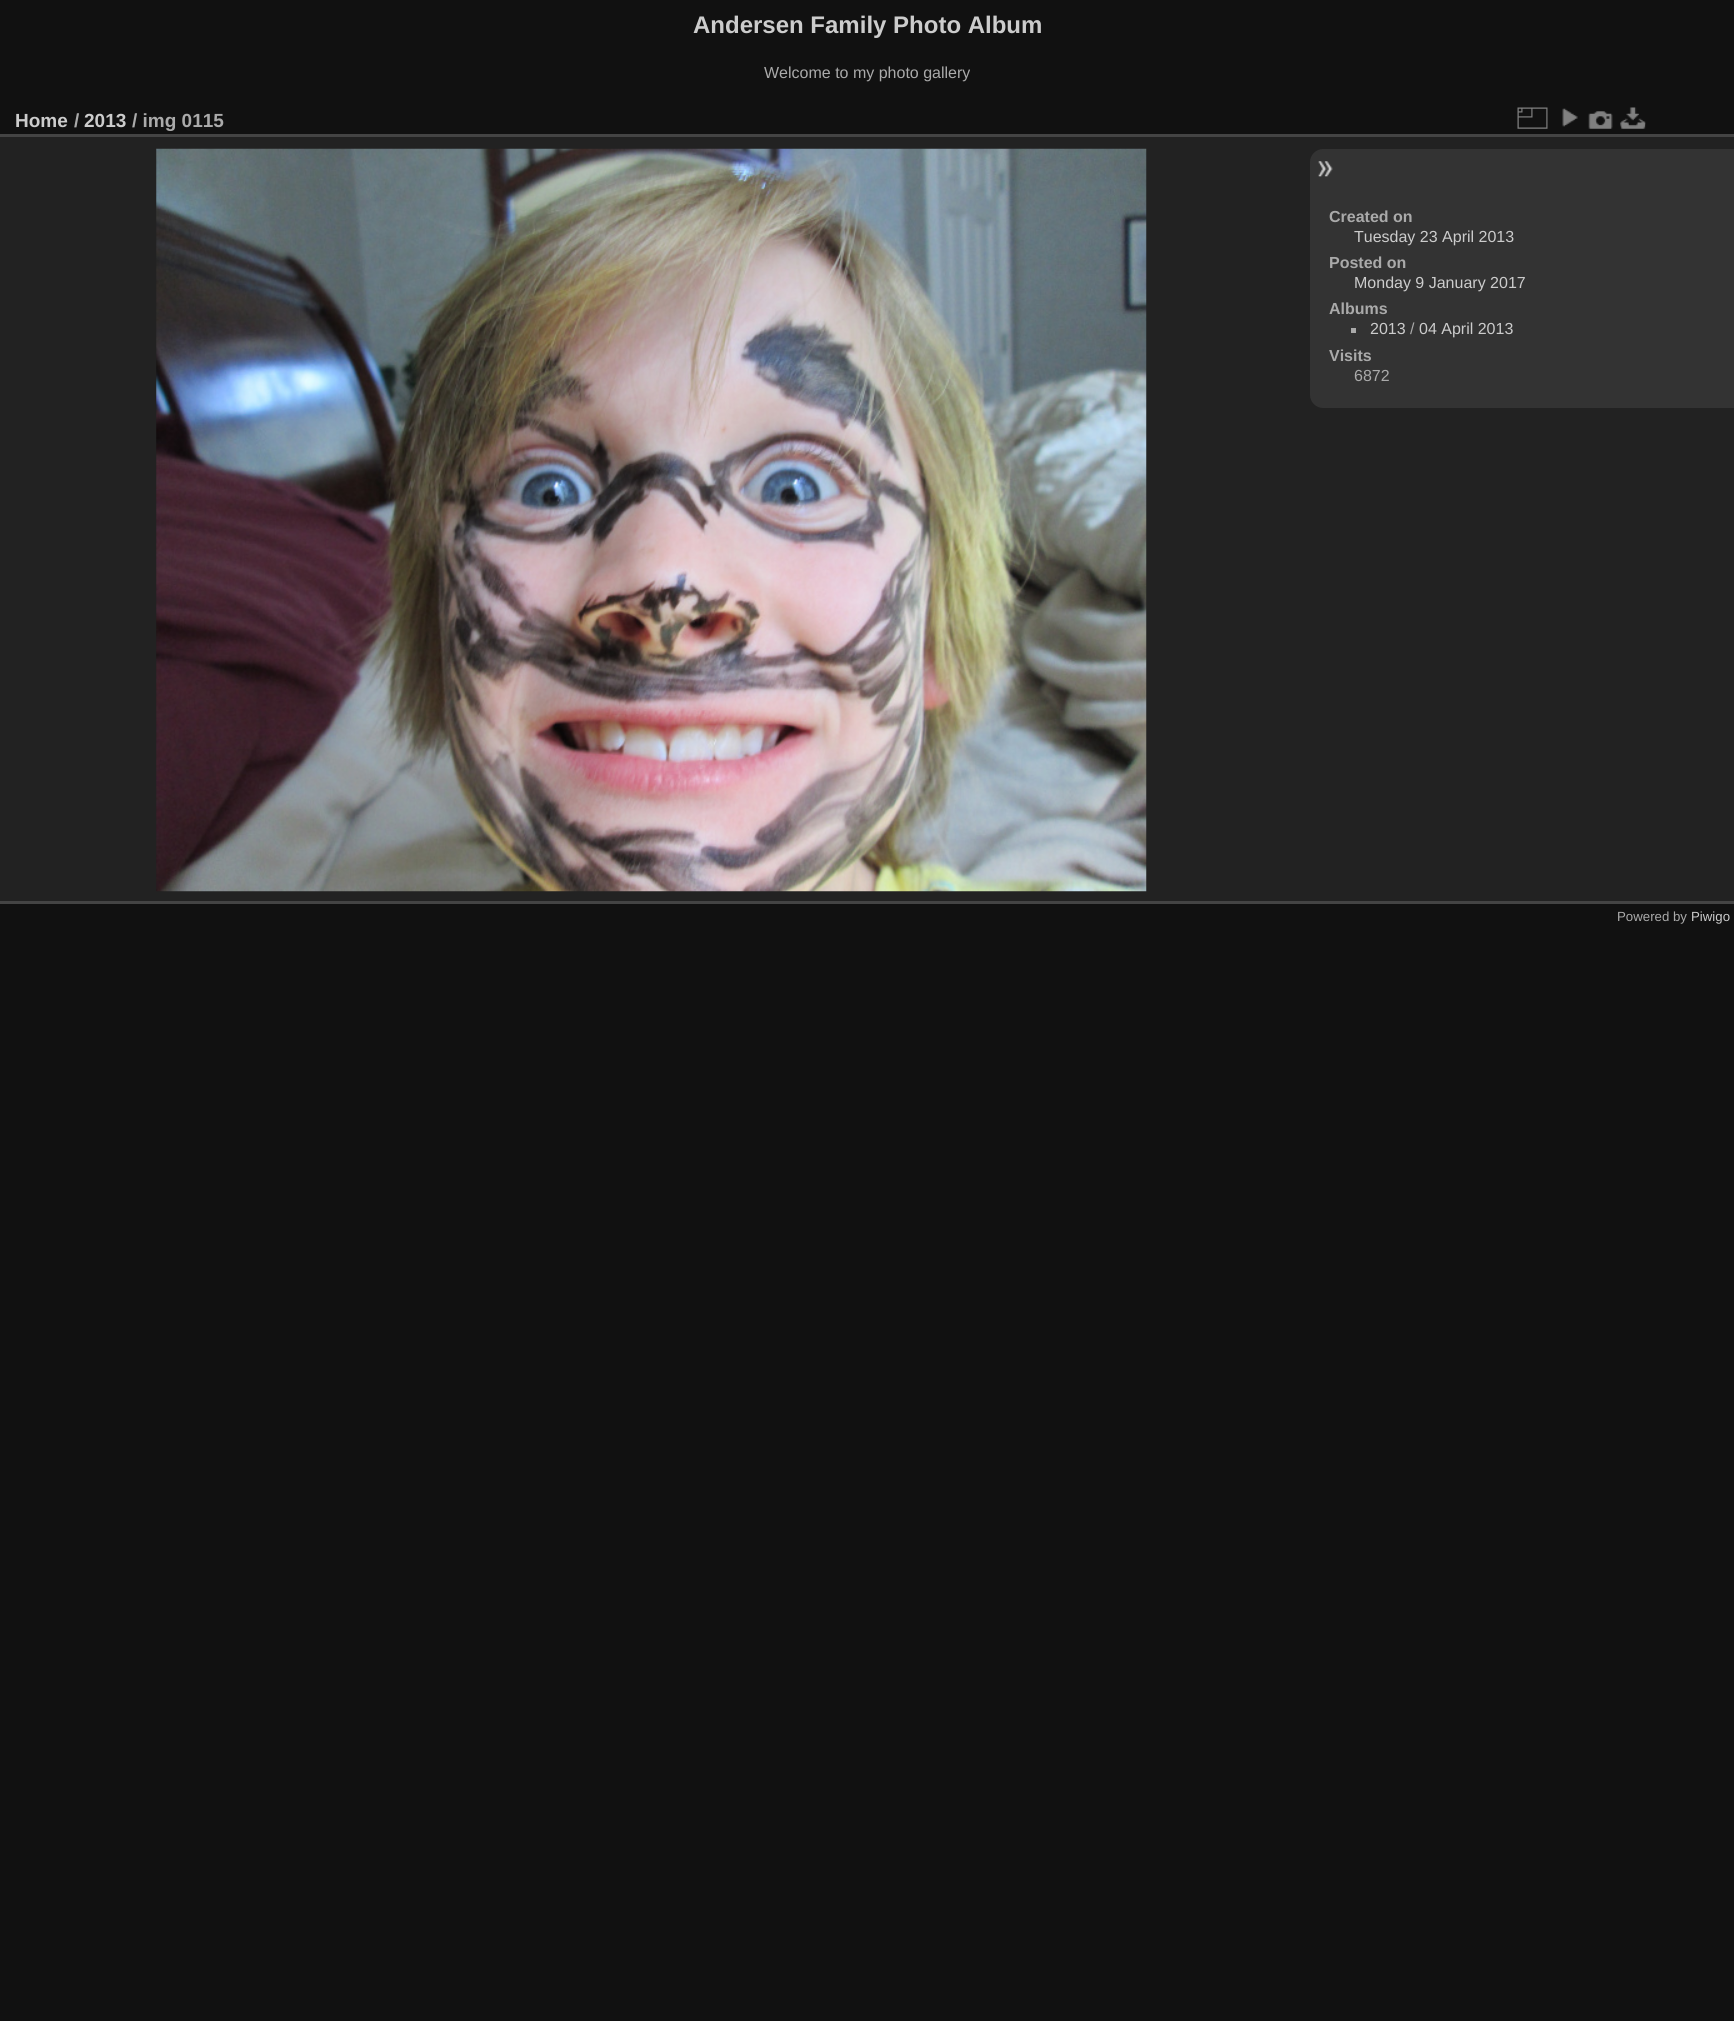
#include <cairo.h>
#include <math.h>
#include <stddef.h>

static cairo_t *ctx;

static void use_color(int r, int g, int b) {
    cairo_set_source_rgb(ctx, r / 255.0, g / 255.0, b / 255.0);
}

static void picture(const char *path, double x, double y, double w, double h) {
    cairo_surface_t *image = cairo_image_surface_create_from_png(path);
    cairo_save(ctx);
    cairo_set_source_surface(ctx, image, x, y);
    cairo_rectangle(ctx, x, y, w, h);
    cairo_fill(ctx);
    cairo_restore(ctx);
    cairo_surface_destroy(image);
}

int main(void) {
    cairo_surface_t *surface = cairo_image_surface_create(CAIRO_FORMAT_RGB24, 1734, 2021);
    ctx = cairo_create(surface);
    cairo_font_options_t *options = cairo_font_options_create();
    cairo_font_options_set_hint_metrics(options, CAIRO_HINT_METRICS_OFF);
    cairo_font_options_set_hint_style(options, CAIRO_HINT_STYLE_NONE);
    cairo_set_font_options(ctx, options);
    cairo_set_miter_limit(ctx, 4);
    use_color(17, 17, 17);
    cairo_paint(ctx);
    cairo_select_font_face(ctx, "Liberation Sans", CAIRO_FONT_SLANT_NORMAL, CAIRO_FONT_WEIGHT_BOLD);
    cairo_set_font_size(ctx, 24);
    use_color(204, 204, 204);
    cairo_move_to(ctx, 693, 33);
    cairo_show_text(ctx, "Andersen Family Photo Album");
    cairo_select_font_face(ctx, "Liberation Sans", CAIRO_FONT_SLANT_NORMAL, CAIRO_FONT_WEIGHT_NORMAL);
    cairo_set_font_size(ctx, 16);
    use_color(170, 170, 170);
    cairo_move_to(ctx, 764, 78);
    cairo_show_text(ctx, "Welcome to my photo gallery");
    use_color(34, 34, 34);
    cairo_rectangle(ctx, 0, 137, 1734, 764);
    cairo_fill(ctx);
    use_color(68, 68, 68);
    cairo_rectangle(ctx, 0, 901, 1734, 3);
    cairo_fill(ctx);
    cairo_rectangle(ctx, 0, 134, 1734, 3);
    cairo_fill(ctx);
    cairo_select_font_face(ctx, "Liberation Sans", CAIRO_FONT_SLANT_NORMAL, CAIRO_FONT_WEIGHT_BOLD);
    cairo_set_font_size(ctx, 19);
    use_color(204, 204, 204);
    cairo_move_to(ctx, 15, 127);
    cairo_show_text(ctx, "Home");
    use_color(170, 170, 170);
    cairo_move_to(ctx, 74, 127);
    cairo_show_text(ctx, "/");
    use_color(204, 204, 204);
    cairo_move_to(ctx, 84, 127);
    cairo_show_text(ctx, "2013");
    use_color(170, 170, 170);
    cairo_move_to(ctx, 132, 127);
    cairo_show_text(ctx, "/ img 0115");
    picture("img1.png", 1517, 107, 31, 22);
    picture("img2.png", 1562, 108, 16, 19);
    picture("img3.png", 1588, 111, 25, 18);
    picture("img4.png", 1620, 107, 26, 22);
    picture("img5.png", 156, 148, 991, 744);
    use_color(51, 51, 51);
    cairo_new_path(ctx);
    cairo_move_to(ctx, 1323, 149);
    cairo_line_to(ctx, 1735, 149);
    cairo_line_to(ctx, 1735, 408);
    cairo_line_to(ctx, 1323, 408);
    cairo_curve_to(ctx, 1316, 408, 1310, 402, 1310, 395);
    cairo_line_to(ctx, 1310, 162);
    cairo_curve_to(ctx, 1310, 155, 1316, 149, 1323, 149);
    cairo_close_path(ctx);
    cairo_fill(ctx);
    picture("img6.png", 1318, 161, 15, 16);
    cairo_set_font_size(ctx, 16);
    use_color(170, 170, 170);
    cairo_move_to(ctx, 1329, 222);
    cairo_show_text(ctx, "Created on");
    cairo_select_font_face(ctx, "Liberation Sans", CAIRO_FONT_SLANT_NORMAL, CAIRO_FONT_WEIGHT_NORMAL);
    use_color(204, 204, 204);
    cairo_move_to(ctx, 1354, 242);
    cairo_show_text(ctx, "Tuesday 23 April 2013");
    cairo_select_font_face(ctx, "Liberation Sans", CAIRO_FONT_SLANT_NORMAL, CAIRO_FONT_WEIGHT_BOLD);
    use_color(170, 170, 170);
    cairo_move_to(ctx, 1329, 268);
    cairo_show_text(ctx, "Posted on");
    cairo_select_font_face(ctx, "Liberation Sans", CAIRO_FONT_SLANT_NORMAL, CAIRO_FONT_WEIGHT_NORMAL);
    use_color(204, 204, 204);
    cairo_move_to(ctx, 1354, 288);
    cairo_show_text(ctx, "Monday 9 January 2017");
    cairo_select_font_face(ctx, "Liberation Sans", CAIRO_FONT_SLANT_NORMAL, CAIRO_FONT_WEIGHT_BOLD);
    use_color(170, 170, 170);
    cairo_move_to(ctx, 1329, 314);
    cairo_show_text(ctx, "Albums");
    cairo_rectangle(ctx, 1351, 328, 5, 5);
    cairo_fill(ctx);
    cairo_select_font_face(ctx, "Liberation Sans", CAIRO_FONT_SLANT_NORMAL, CAIRO_FONT_WEIGHT_NORMAL);
    use_color(204, 204, 204);
    cairo_move_to(ctx, 1370, 334);
    cairo_show_text(ctx, "2013");
    use_color(170, 170, 170);
    cairo_move_to(ctx, 1410, 334);
    cairo_show_text(ctx, "/");
    use_color(204, 204, 204);
    cairo_move_to(ctx, 1419, 334);
    cairo_show_text(ctx, "04 April 2013");
    cairo_select_font_face(ctx, "Liberation Sans", CAIRO_FONT_SLANT_NORMAL, CAIRO_FONT_WEIGHT_BOLD);
    use_color(170, 170, 170);
    cairo_move_to(ctx, 1329, 361);
    cairo_show_text(ctx, "Visits");
    cairo_select_font_face(ctx, "Liberation Sans", CAIRO_FONT_SLANT_NORMAL, CAIRO_FONT_WEIGHT_NORMAL);
    cairo_move_to(ctx, 1354, 381);
    cairo_show_text(ctx, "6872");
    cairo_set_font_size(ctx, 13.25);
    cairo_move_to(ctx, 1617, 921);
    cairo_show_text(ctx, "Powered by");
    use_color(204, 204, 204);
    cairo_move_to(ctx, 1691, 921);
    cairo_show_text(ctx, "Piwigo");
    cairo_surface_write_to_png(surface, "result.png");
    cairo_font_options_destroy(options);
    cairo_destroy(ctx);
    cairo_surface_destroy(surface);
    return 0;
}
